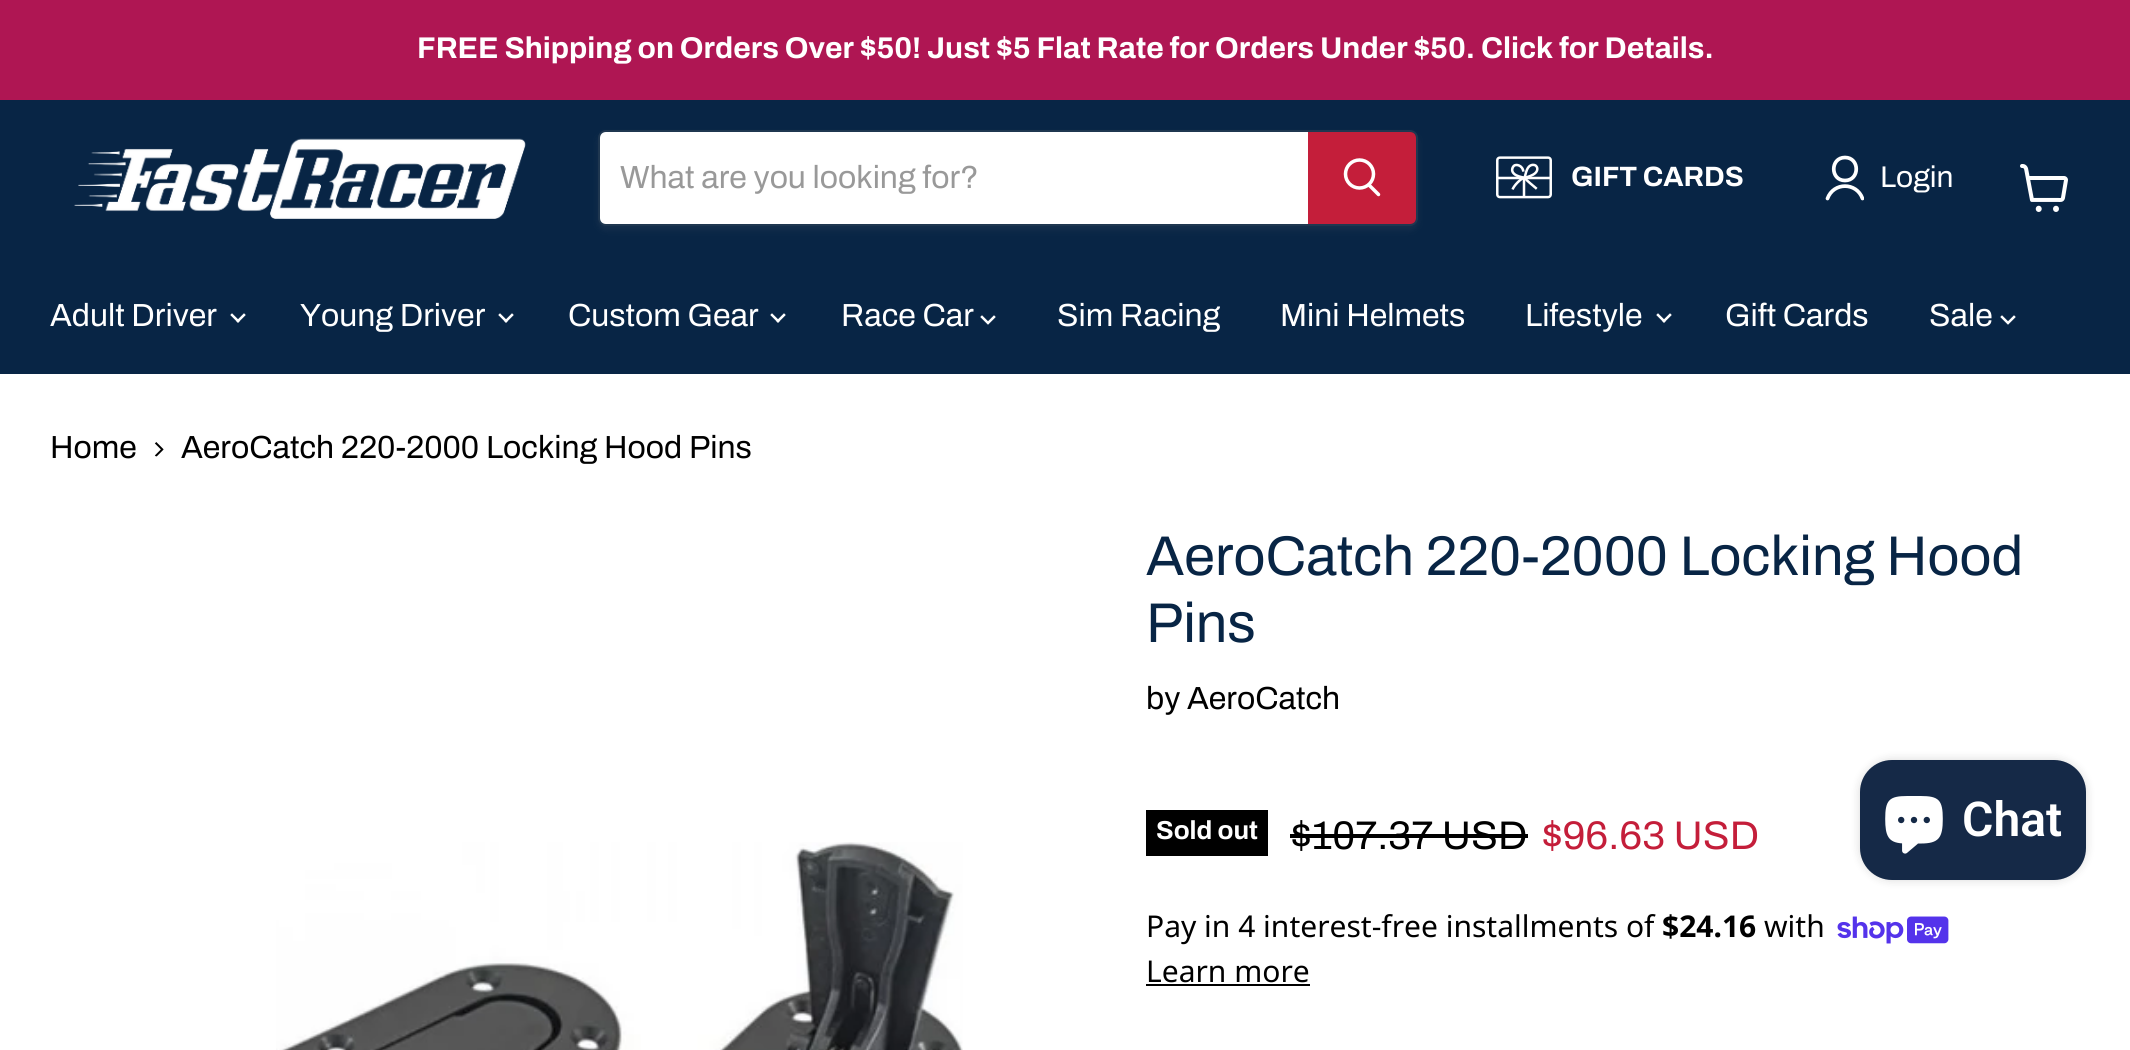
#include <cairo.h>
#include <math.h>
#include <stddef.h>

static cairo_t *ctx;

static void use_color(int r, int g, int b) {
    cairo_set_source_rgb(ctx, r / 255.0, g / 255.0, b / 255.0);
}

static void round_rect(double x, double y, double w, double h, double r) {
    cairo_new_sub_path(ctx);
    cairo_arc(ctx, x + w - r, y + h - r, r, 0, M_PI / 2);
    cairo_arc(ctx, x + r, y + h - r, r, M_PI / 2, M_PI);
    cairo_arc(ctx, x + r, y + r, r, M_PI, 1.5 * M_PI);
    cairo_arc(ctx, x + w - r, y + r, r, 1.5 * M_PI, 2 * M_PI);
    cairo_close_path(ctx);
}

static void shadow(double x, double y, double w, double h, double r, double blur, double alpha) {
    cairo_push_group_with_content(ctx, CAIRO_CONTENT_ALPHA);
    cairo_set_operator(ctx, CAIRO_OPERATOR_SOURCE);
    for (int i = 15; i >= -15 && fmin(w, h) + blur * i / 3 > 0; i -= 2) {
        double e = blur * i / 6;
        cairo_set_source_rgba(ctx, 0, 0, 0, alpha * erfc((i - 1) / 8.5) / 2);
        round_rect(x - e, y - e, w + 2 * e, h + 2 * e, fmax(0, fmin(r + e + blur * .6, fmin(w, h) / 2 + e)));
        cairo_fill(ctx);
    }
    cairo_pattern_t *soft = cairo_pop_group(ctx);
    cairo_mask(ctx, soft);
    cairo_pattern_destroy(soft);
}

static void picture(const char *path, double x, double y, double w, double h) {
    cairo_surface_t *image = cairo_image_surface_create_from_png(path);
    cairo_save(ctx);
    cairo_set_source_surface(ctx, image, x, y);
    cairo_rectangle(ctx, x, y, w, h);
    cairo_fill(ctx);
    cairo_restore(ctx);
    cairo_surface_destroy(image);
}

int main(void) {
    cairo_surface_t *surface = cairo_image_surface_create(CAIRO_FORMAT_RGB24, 2130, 1050);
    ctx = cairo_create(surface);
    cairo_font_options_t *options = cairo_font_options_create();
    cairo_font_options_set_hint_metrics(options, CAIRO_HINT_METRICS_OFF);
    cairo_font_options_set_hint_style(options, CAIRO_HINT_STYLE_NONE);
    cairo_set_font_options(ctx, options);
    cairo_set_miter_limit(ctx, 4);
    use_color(255, 255, 255);
    cairo_paint(ctx);
    use_color(175, 22, 83);
    cairo_rectangle(ctx, 0, 0, 2130, 100);
    cairo_fill(ctx);
    cairo_select_font_face(ctx, "Archivo", CAIRO_FONT_SLANT_NORMAL, CAIRO_FONT_WEIGHT_BOLD);
    cairo_set_font_size(ctx, 30);
    use_color(255, 255, 255);
    cairo_move_to(ctx, 417, 58);
    cairo_show_text(ctx, "FREE Shipping on Orders Over $50! Just $5 Flat Rate for Orders Under $50. Click for Details.");
    use_color(8, 37, 69);
    cairo_rectangle(ctx, 0, 100, 2130, 274);
    cairo_fill(ctx);
    picture("img1.png", 74, 138, 452, 81);
    cairo_save(ctx);
    cairo_set_fill_rule(ctx, CAIRO_FILL_RULE_EVEN_ODD);
    cairo_new_path(ctx);
    cairo_move_to(ctx, 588, 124);
    cairo_line_to(ctx, 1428, 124);
    cairo_line_to(ctx, 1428, 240);
    cairo_line_to(ctx, 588, 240);
    cairo_close_path(ctx);
    cairo_move_to(ctx, 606, 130);
    cairo_line_to(ctx, 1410, 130);
    cairo_curve_to(ctx, 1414.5, 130, 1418, 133.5, 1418, 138);
    cairo_line_to(ctx, 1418, 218);
    cairo_curve_to(ctx, 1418, 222.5, 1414.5, 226, 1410, 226);
    cairo_line_to(ctx, 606, 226);
    cairo_curve_to(ctx, 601.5, 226, 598, 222.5, 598, 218);
    cairo_line_to(ctx, 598, 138);
    cairo_curve_to(ctx, 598, 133.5, 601.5, 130, 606, 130);
    cairo_close_path(ctx);
    cairo_clip(ctx);
    use_color(128, 128, 128);
    shadow(598, 134, 820, 96, 8, 3, 0.11);
    cairo_restore(ctx);
    round_rect(599, 131, 818, 94, 7);
    cairo_set_source_rgba(ctx, 0.502, 0.502, 0.502, 0.2);
    cairo_stroke(ctx);
    use_color(255, 255, 255);
    cairo_new_path(ctx);
    cairo_move_to(ctx, 606, 132);
    cairo_line_to(ctx, 1308, 132);
    cairo_line_to(ctx, 1308, 224);
    cairo_line_to(ctx, 606, 224);
    cairo_curve_to(ctx, 602.5, 224, 600, 221.5, 600, 218);
    cairo_line_to(ctx, 600, 138);
    cairo_curve_to(ctx, 600, 134.5, 602.5, 132, 606, 132);
    cairo_close_path(ctx);
    cairo_fill(ctx);
    cairo_select_font_face(ctx, "Archivo", CAIRO_FONT_SLANT_NORMAL, CAIRO_FONT_WEIGHT_NORMAL);
    cairo_set_font_size(ctx, 32);
    use_color(153, 153, 153);
    cairo_move_to(ctx, 620, 188);
    cairo_show_text(ctx, "What are you looking for?");
    use_color(196, 30, 58);
    cairo_new_path(ctx);
    cairo_move_to(ctx, 1309, 133);
    cairo_line_to(ctx, 1410, 133);
    cairo_curve_to(ctx, 1413, 133, 1415, 135, 1415, 138);
    cairo_line_to(ctx, 1415, 218);
    cairo_curve_to(ctx, 1415, 221, 1413, 223, 1410, 223);
    cairo_line_to(ctx, 1309, 223);
    cairo_close_path(ctx);
    cairo_fill_preserve(ctx);
    cairo_stroke(ctx);
    cairo_new_path(ctx);
    cairo_move_to(ctx, 1378.5, 194.5);
    cairo_line_to(ctx, 1369, 185);
    use_color(255, 255, 255);
    cairo_set_line_width(ctx, 3.5);
    cairo_set_line_cap(ctx, CAIRO_LINE_CAP_ROUND);
    cairo_stroke(ctx);
    cairo_arc(ctx, 1359.5, 174, 14, 0, 2 * M_PI);
    cairo_set_line_cap(ctx, CAIRO_LINE_CAP_BUTT);
    cairo_stroke(ctx);
    picture("img2.png", 1496, 156, 56, 43);
    cairo_select_font_face(ctx, "Archivo", CAIRO_FONT_SLANT_NORMAL, CAIRO_FONT_WEIGHT_BOLD);
    cairo_set_font_size(ctx, 28);
    cairo_move_to(ctx, 1571, 186);
    cairo_show_text(ctx, "GIFT CARDS");
    cairo_new_path(ctx);
    cairo_move_to(ctx, 1845, 180.5);
    cairo_curve_to(ctx, 1860, 180.5, 1860, 157.5, 1845, 157.5);
    cairo_curve_to(ctx, 1830, 157.5, 1830, 180.5, 1845, 180.5);
    cairo_close_path(ctx);
    cairo_set_line_width(ctx, 3.7);
    cairo_set_line_cap(ctx, CAIRO_LINE_CAP_ROUND);
    cairo_set_line_join(ctx, CAIRO_LINE_JOIN_ROUND);
    cairo_stroke(ctx);
    cairo_save(ctx);
    cairo_rectangle(ctx, 1824, 154, 40, 48);
    cairo_clip(ctx);
    cairo_new_path(ctx);
    cairo_move_to(ctx, 1862.5, 198.5);
    cairo_curve_to(ctx, 1856.5, 182, 1833.5, 182, 1827.5, 198.5);
    cairo_stroke(ctx);
    cairo_restore(ctx);
    cairo_select_font_face(ctx, "Archivo", CAIRO_FONT_SLANT_NORMAL, CAIRO_FONT_WEIGHT_NORMAL);
    cairo_set_font_size(ctx, 30);
    cairo_move_to(ctx, 1880, 187);
    cairo_show_text(ctx, "Login");
    picture("img3.png", 2020, 164, 48, 48);
    cairo_set_font_size(ctx, 32);
    cairo_move_to(ctx, 50, 326);
    cairo_show_text(ctx, "Adult Driver");
    picture("img4.png", 230, 313, 16, 10);
    cairo_move_to(ctx, 300, 326);
    cairo_show_text(ctx, "Young Driver");
    picture("img4.png", 498, 313, 16, 10);
    cairo_move_to(ctx, 568, 326);
    cairo_show_text(ctx, "Custom Gear");
    picture("img4.png", 770, 313, 16, 10);
    cairo_move_to(ctx, 841, 326);
    cairo_show_text(ctx, "Race Car");
    cairo_new_path(ctx);
    cairo_move_to(ctx, 988, 323);
    cairo_line_to(ctx, 994, 317);
    cairo_move_to(ctx, 988, 323);
    cairo_line_to(ctx, 982, 317);
    cairo_set_line_width(ctx, 2.5);
    cairo_set_line_cap(ctx, CAIRO_LINE_CAP_SQUARE);
    cairo_set_line_join(ctx, CAIRO_LINE_JOIN_MITER);
    cairo_stroke(ctx);
    cairo_move_to(ctx, 1057, 326);
    cairo_show_text(ctx, "Sim Racing");
    cairo_move_to(ctx, 1280, 326);
    cairo_show_text(ctx, "Mini Helmets");
    cairo_move_to(ctx, 1525, 326);
    cairo_show_text(ctx, "Lifestyle");
    picture("img4.png", 1656, 313, 16, 10);
    cairo_move_to(ctx, 1725, 326);
    cairo_show_text(ctx, "Gift Cards");
    cairo_move_to(ctx, 1929, 326);
    cairo_show_text(ctx, "Sale");
    cairo_new_path(ctx);
    cairo_move_to(ctx, 2008, 323);
    cairo_line_to(ctx, 2014, 317);
    cairo_move_to(ctx, 2008, 323);
    cairo_line_to(ctx, 2002, 317);
    cairo_stroke(ctx);
    use_color(0, 0, 0);
    cairo_move_to(ctx, 50, 458);
    cairo_show_text(ctx, "Home");
    picture("img5.png", 154, 442, 10, 15);
    cairo_move_to(ctx, 181, 458);
    cairo_show_text(ctx, "AeroCatch 220-2000 Locking Hood Pins");
    picture("img6.png", 276, 842, 687, 208);
    cairo_set_font_size(ctx, 56);
    use_color(8, 37, 69);
    cairo_move_to(ctx, 1146, 575);
    cairo_show_text(ctx, "AeroCatch 220-2000 Locking Hood");
    cairo_move_to(ctx, 1146, 642);
    cairo_show_text(ctx, "Pins");
    cairo_set_font_size(ctx, 32);
    use_color(0, 0, 0);
    cairo_move_to(ctx, 1146, 709);
    cairo_show_text(ctx, "by AeroCatch");
    cairo_rectangle(ctx, 1146, 810, 122, 46);
    cairo_fill(ctx);
    cairo_select_font_face(ctx, "Archivo", CAIRO_FONT_SLANT_NORMAL, CAIRO_FONT_WEIGHT_BOLD);
    cairo_set_font_size(ctx, 26);
    use_color(255, 255, 255);
    cairo_move_to(ctx, 1156, 839);
    cairo_show_text(ctx, "Sold out");
    cairo_select_font_face(ctx, "Archivo", CAIRO_FONT_SLANT_NORMAL, CAIRO_FONT_WEIGHT_NORMAL);
    cairo_set_font_size(ctx, 40);
    use_color(0, 0, 0);
    cairo_move_to(ctx, 1291, 849);
    cairo_show_text(ctx, "$107.37 USD");
    cairo_rectangle(ctx, 1290, 834, 238, 4);
    cairo_fill(ctx);
    use_color(196, 30, 58);
    cairo_move_to(ctx, 1542, 849);
    cairo_show_text(ctx, "$96.63 USD");
    cairo_select_font_face(ctx, "Noto Sans", CAIRO_FONT_SLANT_NORMAL, CAIRO_FONT_WEIGHT_NORMAL);
    cairo_set_font_size(ctx, 30);
    use_color(0, 0, 0);
    cairo_move_to(ctx, 1146, 937);
    cairo_show_text(ctx, "Pay in 4 interest-free installments of");
    cairo_select_font_face(ctx, "Noto Sans", CAIRO_FONT_SLANT_NORMAL, CAIRO_FONT_WEIGHT_BOLD);
    cairo_move_to(ctx, 1662, 937);
    cairo_show_text(ctx, "$24.16");
    cairo_select_font_face(ctx, "Noto Sans", CAIRO_FONT_SLANT_NORMAL, CAIRO_FONT_WEIGHT_NORMAL);
    cairo_move_to(ctx, 1764, 937);
    cairo_show_text(ctx, "with");
    picture("img7.png", 1837, 916, 112, 28);
    cairo_move_to(ctx, 1146, 982);
    cairo_show_text(ctx, "Learn more");
    cairo_rectangle(ctx, 1146, 984, 164, 2);
    cairo_fill(ctx);
    use_color(0, 0, 0);
    shadow(1860, 760, 226, 120, 32, 5, 0.15);
    use_color(21, 41, 71);
    round_rect(1860, 760, 226, 120, 32);
    cairo_fill(ctx);
    picture("img8.png", 1885, 796, 58, 58);
    cairo_select_font_face(ctx, "Roboto SemiBold", CAIRO_FONT_SLANT_NORMAL, CAIRO_FONT_WEIGHT_NORMAL);
    cairo_set_font_size(ctx, 48);
    use_color(255, 255, 255);
    cairo_move_to(ctx, 1962, 836);
    cairo_show_text(ctx, "Chat");
    cairo_surface_write_to_png(surface, "result.png");
    cairo_font_options_destroy(options);
    cairo_destroy(ctx);
    cairo_surface_destroy(surface);
    return 0;
}
